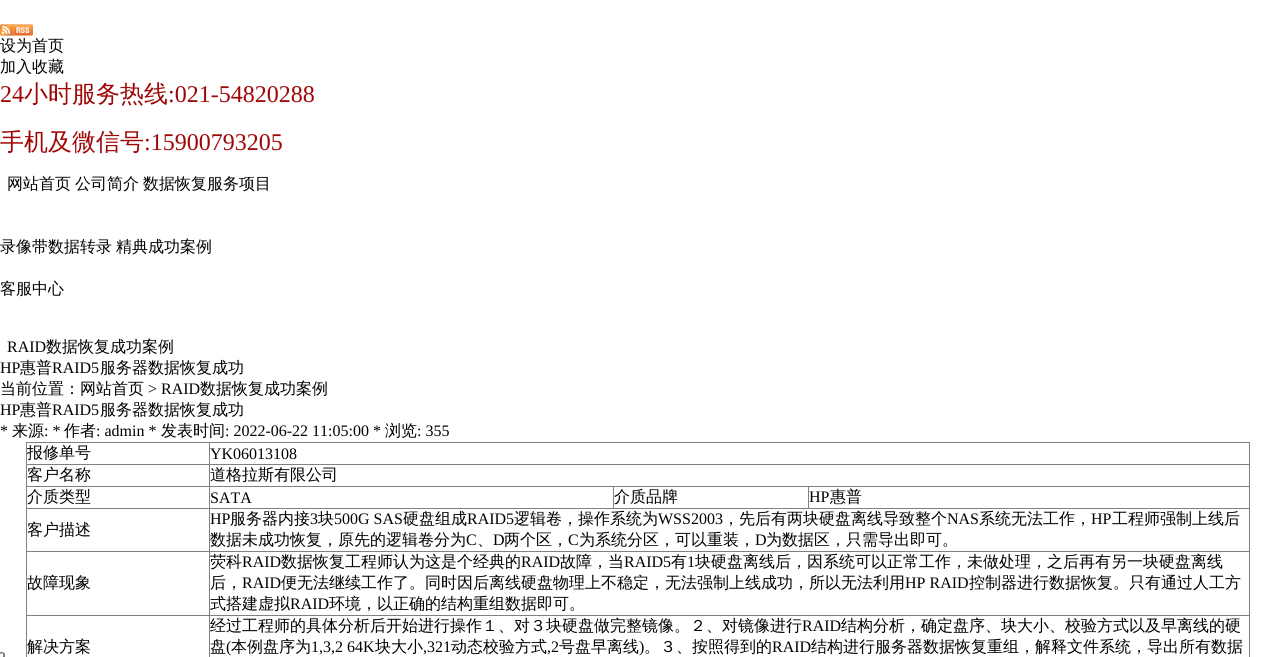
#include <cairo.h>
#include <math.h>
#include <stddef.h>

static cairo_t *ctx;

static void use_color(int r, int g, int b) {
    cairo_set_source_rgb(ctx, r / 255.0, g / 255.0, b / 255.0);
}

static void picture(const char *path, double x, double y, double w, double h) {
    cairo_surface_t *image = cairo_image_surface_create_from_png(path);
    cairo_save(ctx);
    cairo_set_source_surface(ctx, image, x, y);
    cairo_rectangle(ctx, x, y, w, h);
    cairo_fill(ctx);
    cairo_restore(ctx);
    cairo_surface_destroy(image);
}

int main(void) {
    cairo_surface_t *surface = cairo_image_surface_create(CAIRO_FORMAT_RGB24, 1275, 657);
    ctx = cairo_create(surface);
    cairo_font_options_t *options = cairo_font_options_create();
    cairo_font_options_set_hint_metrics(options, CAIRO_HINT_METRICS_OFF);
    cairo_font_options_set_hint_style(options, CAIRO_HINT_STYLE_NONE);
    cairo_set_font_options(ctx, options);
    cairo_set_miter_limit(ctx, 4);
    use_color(255, 255, 255);
    cairo_paint(ctx);
    picture("img1.png", 0, 24, 33, 12);
    cairo_select_font_face(ctx, "WenQuanYi Zen Hei Medium", CAIRO_FONT_SLANT_NORMAL, CAIRO_FONT_WEIGHT_NORMAL);
    cairo_set_font_size(ctx, 16);
    use_color(0, 0, 0);
    cairo_move_to(ctx, 0, 51);
    cairo_show_text(ctx, "设为首页");
    cairo_move_to(ctx, 0, 72);
    cairo_show_text(ctx, "加入收藏");
    cairo_select_font_face(ctx, "Liberation Serif", CAIRO_FONT_SLANT_NORMAL, CAIRO_FONT_WEIGHT_NORMAL);
    cairo_set_font_size(ctx, 24);
    use_color(159, 7, 6);
    cairo_move_to(ctx, 0, 102);
    cairo_show_text(ctx, "24");
    cairo_select_font_face(ctx, "WenQuanYi Zen Hei Medium", CAIRO_FONT_SLANT_NORMAL, CAIRO_FONT_WEIGHT_NORMAL);
    cairo_move_to(ctx, 24, 102);
    cairo_show_text(ctx, "小时服务热线");
    cairo_select_font_face(ctx, "Liberation Serif", CAIRO_FONT_SLANT_NORMAL, CAIRO_FONT_WEIGHT_NORMAL);
    cairo_move_to(ctx, 168, 102);
    cairo_show_text(ctx, ":021-54820288");
    cairo_select_font_face(ctx, "WenQuanYi Zen Hei Medium", CAIRO_FONT_SLANT_NORMAL, CAIRO_FONT_WEIGHT_NORMAL);
    cairo_move_to(ctx, 0, 150);
    cairo_show_text(ctx, "手机及微信号");
    cairo_select_font_face(ctx, "Liberation Serif", CAIRO_FONT_SLANT_NORMAL, CAIRO_FONT_WEIGHT_NORMAL);
    cairo_move_to(ctx, 144, 150);
    cairo_show_text(ctx, ":15900793205");
    cairo_select_font_face(ctx, "WenQuanYi Zen Hei Medium", CAIRO_FONT_SLANT_NORMAL, CAIRO_FONT_WEIGHT_NORMAL);
    cairo_set_font_size(ctx, 16);
    use_color(0, 0, 0);
    cairo_move_to(ctx, 7, 189);
    cairo_show_text(ctx, "网站首页");
    cairo_move_to(ctx, 75, 189);
    cairo_show_text(ctx, "公司简介");
    cairo_move_to(ctx, 143, 189);
    cairo_show_text(ctx, "数据恢复服务项目");
    cairo_move_to(ctx, 0, 252);
    cairo_show_text(ctx, "录像带数据转录");
    cairo_move_to(ctx, 116, 252);
    cairo_show_text(ctx, "精典成功案例");
    cairo_move_to(ctx, 0, 294);
    cairo_show_text(ctx, "客服中心");
    cairo_select_font_face(ctx, "Liberation Serif", CAIRO_FONT_SLANT_NORMAL, CAIRO_FONT_WEIGHT_NORMAL);
    cairo_move_to(ctx, 7, 352);
    cairo_show_text(ctx, "RAID");
    cairo_select_font_face(ctx, "WenQuanYi Zen Hei Medium", CAIRO_FONT_SLANT_NORMAL, CAIRO_FONT_WEIGHT_NORMAL);
    cairo_move_to(ctx, 46, 352);
    cairo_show_text(ctx, "数据恢复成功案例");
    cairo_select_font_face(ctx, "Liberation Serif", CAIRO_FONT_SLANT_NORMAL, CAIRO_FONT_WEIGHT_NORMAL);
    cairo_move_to(ctx, 0, 373);
    cairo_show_text(ctx, "HP");
    cairo_select_font_face(ctx, "WenQuanYi Zen Hei Medium", CAIRO_FONT_SLANT_NORMAL, CAIRO_FONT_WEIGHT_NORMAL);
    cairo_move_to(ctx, 20, 373);
    cairo_show_text(ctx, "惠普");
    cairo_select_font_face(ctx, "Liberation Serif", CAIRO_FONT_SLANT_NORMAL, CAIRO_FONT_WEIGHT_NORMAL);
    cairo_move_to(ctx, 52, 373);
    cairo_show_text(ctx, "RAID5");
    cairo_select_font_face(ctx, "WenQuanYi Zen Hei Medium", CAIRO_FONT_SLANT_NORMAL, CAIRO_FONT_WEIGHT_NORMAL);
    cairo_move_to(ctx, 100, 373);
    cairo_show_text(ctx, "服务器数据恢复成功");
    cairo_move_to(ctx, 0, 394);
    cairo_show_text(ctx, "当前位置：网站首页");
    cairo_select_font_face(ctx, "Liberation Serif", CAIRO_FONT_SLANT_NORMAL, CAIRO_FONT_WEIGHT_NORMAL);
    cairo_move_to(ctx, 148, 394);
    cairo_show_text(ctx, "> RAID");
    cairo_select_font_face(ctx, "WenQuanYi Zen Hei Medium", CAIRO_FONT_SLANT_NORMAL, CAIRO_FONT_WEIGHT_NORMAL);
    cairo_move_to(ctx, 200, 394);
    cairo_show_text(ctx, "数据恢复成功案例");
    cairo_select_font_face(ctx, "Liberation Serif", CAIRO_FONT_SLANT_NORMAL, CAIRO_FONT_WEIGHT_NORMAL);
    cairo_move_to(ctx, 0, 415);
    cairo_show_text(ctx, "HP");
    cairo_select_font_face(ctx, "WenQuanYi Zen Hei Medium", CAIRO_FONT_SLANT_NORMAL, CAIRO_FONT_WEIGHT_NORMAL);
    cairo_move_to(ctx, 20, 415);
    cairo_show_text(ctx, "惠普");
    cairo_select_font_face(ctx, "Liberation Serif", CAIRO_FONT_SLANT_NORMAL, CAIRO_FONT_WEIGHT_NORMAL);
    cairo_move_to(ctx, 52, 415);
    cairo_show_text(ctx, "RAID5");
    cairo_select_font_face(ctx, "WenQuanYi Zen Hei Medium", CAIRO_FONT_SLANT_NORMAL, CAIRO_FONT_WEIGHT_NORMAL);
    cairo_move_to(ctx, 100, 415);
    cairo_show_text(ctx, "服务器数据恢复成功");
    cairo_select_font_face(ctx, "Liberation Serif", CAIRO_FONT_SLANT_NORMAL, CAIRO_FONT_WEIGHT_NORMAL);
    cairo_move_to(ctx, 0, 436);
    cairo_show_text(ctx, "*");
    cairo_select_font_face(ctx, "WenQuanYi Zen Hei Medium", CAIRO_FONT_SLANT_NORMAL, CAIRO_FONT_WEIGHT_NORMAL);
    cairo_move_to(ctx, 12, 436);
    cairo_show_text(ctx, "来源");
    cairo_select_font_face(ctx, "Liberation Serif", CAIRO_FONT_SLANT_NORMAL, CAIRO_FONT_WEIGHT_NORMAL);
    cairo_move_to(ctx, 44, 436);
    cairo_show_text(ctx, ": *");
    cairo_select_font_face(ctx, "WenQuanYi Zen Hei Medium", CAIRO_FONT_SLANT_NORMAL, CAIRO_FONT_WEIGHT_NORMAL);
    cairo_move_to(ctx, 64, 436);
    cairo_show_text(ctx, "作者");
    cairo_select_font_face(ctx, "Liberation Serif", CAIRO_FONT_SLANT_NORMAL, CAIRO_FONT_WEIGHT_NORMAL);
    cairo_move_to(ctx, 96, 436);
    cairo_show_text(ctx, ": admin *");
    cairo_select_font_face(ctx, "WenQuanYi Zen Hei Medium", CAIRO_FONT_SLANT_NORMAL, CAIRO_FONT_WEIGHT_NORMAL);
    cairo_move_to(ctx, 161, 436);
    cairo_show_text(ctx, "发表时间");
    cairo_select_font_face(ctx, "Liberation Serif", CAIRO_FONT_SLANT_NORMAL, CAIRO_FONT_WEIGHT_NORMAL);
    cairo_move_to(ctx, 225, 436);
    cairo_show_text(ctx, ": 2022-06-22 11:05:00 *");
    cairo_select_font_face(ctx, "WenQuanYi Zen Hei Medium", CAIRO_FONT_SLANT_NORMAL, CAIRO_FONT_WEIGHT_NORMAL);
    cairo_move_to(ctx, 385, 436);
    cairo_show_text(ctx, "浏览");
    cairo_select_font_face(ctx, "Liberation Serif", CAIRO_FONT_SLANT_NORMAL, CAIRO_FONT_WEIGHT_NORMAL);
    cairo_move_to(ctx, 417, 436);
    cairo_show_text(ctx, ": 355");
    use_color(128, 128, 128);
    cairo_rectangle(ctx, 26, 442, 1224, 1);
    cairo_fill(ctx);
    cairo_rectangle(ctx, 1249, 442, 1, 215);
    cairo_fill(ctx);
    cairo_rectangle(ctx, 26, 442, 1, 215);
    cairo_fill(ctx);
    cairo_select_font_face(ctx, "WenQuanYi Zen Hei Medium", CAIRO_FONT_SLANT_NORMAL, CAIRO_FONT_WEIGHT_NORMAL);
    use_color(0, 0, 0);
    cairo_move_to(ctx, 27, 458);
    cairo_show_text(ctx, "报修单号");
    use_color(128, 128, 128);
    cairo_rectangle(ctx, 209, 464, 1041, 1);
    cairo_fill(ctx);
    cairo_rectangle(ctx, 808, 486, 442, 1);
    cairo_fill(ctx);
    cairo_rectangle(ctx, 209, 508, 1041, 1);
    cairo_fill(ctx);
    cairo_rectangle(ctx, 808, 486, 1, 23);
    cairo_fill(ctx);
    cairo_rectangle(ctx, 613, 486, 196, 1);
    cairo_fill(ctx);
    cairo_rectangle(ctx, 613, 486, 1, 23);
    cairo_fill(ctx);
    cairo_rectangle(ctx, 209, 486, 405, 1);
    cairo_fill(ctx);
    cairo_rectangle(ctx, 209, 551, 1041, 1);
    cairo_fill(ctx);
    cairo_rectangle(ctx, 209, 615, 1041, 1);
    cairo_fill(ctx);
    cairo_rectangle(ctx, 209, 615, 1, 42);
    cairo_fill(ctx);
    cairo_rectangle(ctx, 26, 615, 184, 1);
    cairo_fill(ctx);
    cairo_rectangle(ctx, 209, 551, 1, 65);
    cairo_fill(ctx);
    cairo_rectangle(ctx, 26, 551, 184, 1);
    cairo_fill(ctx);
    cairo_rectangle(ctx, 209, 508, 1, 44);
    cairo_fill(ctx);
    cairo_rectangle(ctx, 26, 508, 184, 1);
    cairo_fill(ctx);
    cairo_rectangle(ctx, 209, 486, 1, 23);
    cairo_fill(ctx);
    cairo_rectangle(ctx, 26, 486, 184, 1);
    cairo_fill(ctx);
    cairo_rectangle(ctx, 209, 464, 1, 23);
    cairo_fill(ctx);
    cairo_rectangle(ctx, 26, 464, 184, 1);
    cairo_fill(ctx);
    cairo_rectangle(ctx, 209, 442, 1, 23);
    cairo_fill(ctx);
    cairo_select_font_face(ctx, "Liberation Serif", CAIRO_FONT_SLANT_NORMAL, CAIRO_FONT_WEIGHT_NORMAL);
    use_color(0, 0, 0);
    cairo_move_to(ctx, 210, 459);
    cairo_show_text(ctx, "YK06013108");
    cairo_select_font_face(ctx, "WenQuanYi Zen Hei Medium", CAIRO_FONT_SLANT_NORMAL, CAIRO_FONT_WEIGHT_NORMAL);
    cairo_move_to(ctx, 27, 480);
    cairo_show_text(ctx, "客户名称");
    cairo_move_to(ctx, 210, 480);
    cairo_show_text(ctx, "道格拉斯有限公司");
    cairo_move_to(ctx, 27, 502);
    cairo_show_text(ctx, "介质类型");
    cairo_select_font_face(ctx, "Liberation Serif", CAIRO_FONT_SLANT_NORMAL, CAIRO_FONT_WEIGHT_NORMAL);
    cairo_move_to(ctx, 210, 503);
    cairo_show_text(ctx, "SATA");
    cairo_select_font_face(ctx, "WenQuanYi Zen Hei Medium", CAIRO_FONT_SLANT_NORMAL, CAIRO_FONT_WEIGHT_NORMAL);
    cairo_move_to(ctx, 614, 502);
    cairo_show_text(ctx, "介质品牌");
    cairo_select_font_face(ctx, "Liberation Serif", CAIRO_FONT_SLANT_NORMAL, CAIRO_FONT_WEIGHT_NORMAL);
    cairo_move_to(ctx, 809, 502);
    cairo_show_text(ctx, "HP");
    cairo_select_font_face(ctx, "WenQuanYi Zen Hei Medium", CAIRO_FONT_SLANT_NORMAL, CAIRO_FONT_WEIGHT_NORMAL);
    cairo_move_to(ctx, 830, 502);
    cairo_show_text(ctx, "惠普");
    cairo_move_to(ctx, 27, 535);
    cairo_show_text(ctx, "客户描述");
    cairo_select_font_face(ctx, "Liberation Serif", CAIRO_FONT_SLANT_NORMAL, CAIRO_FONT_WEIGHT_NORMAL);
    cairo_move_to(ctx, 210, 524);
    cairo_show_text(ctx, "HP");
    cairo_select_font_face(ctx, "WenQuanYi Zen Hei Medium", CAIRO_FONT_SLANT_NORMAL, CAIRO_FONT_WEIGHT_NORMAL);
    cairo_move_to(ctx, 230, 524);
    cairo_show_text(ctx, "服务器内接");
    cairo_select_font_face(ctx, "Liberation Serif", CAIRO_FONT_SLANT_NORMAL, CAIRO_FONT_WEIGHT_NORMAL);
    cairo_move_to(ctx, 310, 524);
    cairo_show_text(ctx, "3");
    cairo_select_font_face(ctx, "WenQuanYi Zen Hei Medium", CAIRO_FONT_SLANT_NORMAL, CAIRO_FONT_WEIGHT_NORMAL);
    cairo_move_to(ctx, 318, 524);
    cairo_show_text(ctx, "块");
    cairo_select_font_face(ctx, "Liberation Serif", CAIRO_FONT_SLANT_NORMAL, CAIRO_FONT_WEIGHT_NORMAL);
    cairo_move_to(ctx, 334, 524);
    cairo_show_text(ctx, "500G SAS");
    cairo_select_font_face(ctx, "WenQuanYi Zen Hei Medium", CAIRO_FONT_SLANT_NORMAL, CAIRO_FONT_WEIGHT_NORMAL);
    cairo_move_to(ctx, 403, 524);
    cairo_show_text(ctx, "硬盘组成");
    cairo_select_font_face(ctx, "Liberation Serif", CAIRO_FONT_SLANT_NORMAL, CAIRO_FONT_WEIGHT_NORMAL);
    cairo_move_to(ctx, 467, 524);
    cairo_show_text(ctx, "RAID5");
    cairo_select_font_face(ctx, "WenQuanYi Zen Hei Medium", CAIRO_FONT_SLANT_NORMAL, CAIRO_FONT_WEIGHT_NORMAL);
    cairo_move_to(ctx, 514, 524);
    cairo_show_text(ctx, "逻辑卷，操作系统为");
    cairo_select_font_face(ctx, "Liberation Serif", CAIRO_FONT_SLANT_NORMAL, CAIRO_FONT_WEIGHT_NORMAL);
    cairo_move_to(ctx, 658, 524);
    cairo_show_text(ctx, "WSS2003");
    cairo_select_font_face(ctx, "WenQuanYi Zen Hei Medium", CAIRO_FONT_SLANT_NORMAL, CAIRO_FONT_WEIGHT_NORMAL);
    cairo_move_to(ctx, 723, 524);
    cairo_show_text(ctx, "，先后有两块硬盘离线导致整个");
    cairo_select_font_face(ctx, "Liberation Serif", CAIRO_FONT_SLANT_NORMAL, CAIRO_FONT_WEIGHT_NORMAL);
    cairo_move_to(ctx, 947, 524);
    cairo_show_text(ctx, "NAS");
    cairo_select_font_face(ctx, "WenQuanYi Zen Hei Medium", CAIRO_FONT_SLANT_NORMAL, CAIRO_FONT_WEIGHT_NORMAL);
    cairo_move_to(ctx, 979, 524);
    cairo_show_text(ctx, "系统无法工作，");
    cairo_select_font_face(ctx, "Liberation Serif", CAIRO_FONT_SLANT_NORMAL, CAIRO_FONT_WEIGHT_NORMAL);
    cairo_move_to(ctx, 1091, 524);
    cairo_show_text(ctx, "HP");
    cairo_select_font_face(ctx, "WenQuanYi Zen Hei Medium", CAIRO_FONT_SLANT_NORMAL, CAIRO_FONT_WEIGHT_NORMAL);
    cairo_move_to(ctx, 1112, 524);
    cairo_show_text(ctx, "工程师强制上线后");
    cairo_move_to(ctx, 210, 545);
    cairo_show_text(ctx, "数据未成功恢复，原先的逻辑卷分为");
    cairo_select_font_face(ctx, "Liberation Serif", CAIRO_FONT_SLANT_NORMAL, CAIRO_FONT_WEIGHT_NORMAL);
    cairo_move_to(ctx, 466, 545);
    cairo_show_text(ctx, "C");
    cairo_select_font_face(ctx, "WenQuanYi Zen Hei Medium", CAIRO_FONT_SLANT_NORMAL, CAIRO_FONT_WEIGHT_NORMAL);
    cairo_move_to(ctx, 477, 545);
    cairo_show_text(ctx, "、");
    cairo_select_font_face(ctx, "Liberation Serif", CAIRO_FONT_SLANT_NORMAL, CAIRO_FONT_WEIGHT_NORMAL);
    cairo_move_to(ctx, 493, 545);
    cairo_show_text(ctx, "D");
    cairo_select_font_face(ctx, "WenQuanYi Zen Hei Medium", CAIRO_FONT_SLANT_NORMAL, CAIRO_FONT_WEIGHT_NORMAL);
    cairo_move_to(ctx, 504, 545);
    cairo_show_text(ctx, "两个区，");
    cairo_select_font_face(ctx, "Liberation Serif", CAIRO_FONT_SLANT_NORMAL, CAIRO_FONT_WEIGHT_NORMAL);
    cairo_move_to(ctx, 568, 545);
    cairo_show_text(ctx, "C");
    cairo_select_font_face(ctx, "WenQuanYi Zen Hei Medium", CAIRO_FONT_SLANT_NORMAL, CAIRO_FONT_WEIGHT_NORMAL);
    cairo_move_to(ctx, 579, 545);
    cairo_show_text(ctx, "为系统分区，可以重装，");
    cairo_select_font_face(ctx, "Liberation Serif", CAIRO_FONT_SLANT_NORMAL, CAIRO_FONT_WEIGHT_NORMAL);
    cairo_move_to(ctx, 755, 545);
    cairo_show_text(ctx, "D");
    cairo_select_font_face(ctx, "WenQuanYi Zen Hei Medium", CAIRO_FONT_SLANT_NORMAL, CAIRO_FONT_WEIGHT_NORMAL);
    cairo_move_to(ctx, 766, 545);
    cairo_show_text(ctx, "为数据区，只需导出即可。");
    cairo_move_to(ctx, 27, 588);
    cairo_show_text(ctx, "故障现象");
    cairo_move_to(ctx, 210, 567);
    cairo_show_text(ctx, "荧科");
    cairo_select_font_face(ctx, "Liberation Serif", CAIRO_FONT_SLANT_NORMAL, CAIRO_FONT_WEIGHT_NORMAL);
    cairo_move_to(ctx, 242, 567);
    cairo_show_text(ctx, "RAID");
    cairo_select_font_face(ctx, "WenQuanYi Zen Hei Medium", CAIRO_FONT_SLANT_NORMAL, CAIRO_FONT_WEIGHT_NORMAL);
    cairo_move_to(ctx, 281, 567);
    cairo_show_text(ctx, "数据恢复工程师认为这是个经典的");
    cairo_select_font_face(ctx, "Liberation Serif", CAIRO_FONT_SLANT_NORMAL, CAIRO_FONT_WEIGHT_NORMAL);
    cairo_move_to(ctx, 521, 567);
    cairo_show_text(ctx, "RAID");
    cairo_select_font_face(ctx, "WenQuanYi Zen Hei Medium", CAIRO_FONT_SLANT_NORMAL, CAIRO_FONT_WEIGHT_NORMAL);
    cairo_move_to(ctx, 560, 567);
    cairo_show_text(ctx, "故障，当");
    cairo_select_font_face(ctx, "Liberation Serif", CAIRO_FONT_SLANT_NORMAL, CAIRO_FONT_WEIGHT_NORMAL);
    cairo_move_to(ctx, 624, 567);
    cairo_show_text(ctx, "RAID5");
    cairo_select_font_face(ctx, "WenQuanYi Zen Hei Medium", CAIRO_FONT_SLANT_NORMAL, CAIRO_FONT_WEIGHT_NORMAL);
    cairo_move_to(ctx, 671, 567);
    cairo_show_text(ctx, "有");
    cairo_select_font_face(ctx, "Liberation Serif", CAIRO_FONT_SLANT_NORMAL, CAIRO_FONT_WEIGHT_NORMAL);
    cairo_move_to(ctx, 687, 567);
    cairo_show_text(ctx, "1");
    cairo_select_font_face(ctx, "WenQuanYi Zen Hei Medium", CAIRO_FONT_SLANT_NORMAL, CAIRO_FONT_WEIGHT_NORMAL);
    cairo_move_to(ctx, 695, 567);
    cairo_show_text(ctx, "块硬盘离线后，因系统可以正常工作，未做处理，之后再有另一块硬盘离线");
    cairo_move_to(ctx, 210, 588);
    cairo_show_text(ctx, "后，");
    cairo_select_font_face(ctx, "Liberation Serif", CAIRO_FONT_SLANT_NORMAL, CAIRO_FONT_WEIGHT_NORMAL);
    cairo_move_to(ctx, 242, 588);
    cairo_show_text(ctx, "RAID");
    cairo_select_font_face(ctx, "WenQuanYi Zen Hei Medium", CAIRO_FONT_SLANT_NORMAL, CAIRO_FONT_WEIGHT_NORMAL);
    cairo_move_to(ctx, 281, 588);
    cairo_show_text(ctx, "便无法继续工作了。同时因后离线硬盘物理上不稳定，无法强制上线成功，所以无法利用");
    cairo_select_font_face(ctx, "Liberation Serif", CAIRO_FONT_SLANT_NORMAL, CAIRO_FONT_WEIGHT_NORMAL);
    cairo_move_to(ctx, 905, 588);
    cairo_show_text(ctx, "HP RAID");
    cairo_select_font_face(ctx, "WenQuanYi Zen Hei Medium", CAIRO_FONT_SLANT_NORMAL, CAIRO_FONT_WEIGHT_NORMAL);
    cairo_move_to(ctx, 969, 588);
    cairo_show_text(ctx, "控制器进行数据恢复。只有通过人工方");
    cairo_move_to(ctx, 210, 609);
    cairo_show_text(ctx, "式搭建虚拟");
    cairo_select_font_face(ctx, "Liberation Serif", CAIRO_FONT_SLANT_NORMAL, CAIRO_FONT_WEIGHT_NORMAL);
    cairo_move_to(ctx, 290, 609);
    cairo_show_text(ctx, "RAID");
    cairo_select_font_face(ctx, "WenQuanYi Zen Hei Medium", CAIRO_FONT_SLANT_NORMAL, CAIRO_FONT_WEIGHT_NORMAL);
    cairo_move_to(ctx, 329, 609);
    cairo_show_text(ctx, "环境，以正确的结构重组数据即可。");
    cairo_move_to(ctx, 27, 652);
    cairo_show_text(ctx, "解决方案");
    cairo_move_to(ctx, 210, 631);
    cairo_show_text(ctx, "经过工程师的具体分析后开始进行操作１、对３块硬盘做完整镜像。２、对镜像进行");
    cairo_select_font_face(ctx, "Liberation Serif", CAIRO_FONT_SLANT_NORMAL, CAIRO_FONT_WEIGHT_NORMAL);
    cairo_move_to(ctx, 802, 631);
    cairo_show_text(ctx, "RAID");
    cairo_select_font_face(ctx, "WenQuanYi Zen Hei Medium", CAIRO_FONT_SLANT_NORMAL, CAIRO_FONT_WEIGHT_NORMAL);
    cairo_move_to(ctx, 841, 631);
    cairo_show_text(ctx, "结构分析，确定盘序、块大小、校验方式以及早离线的硬");
    cairo_move_to(ctx, 210, 652);
    cairo_show_text(ctx, "盘");
    cairo_select_font_face(ctx, "Liberation Serif", CAIRO_FONT_SLANT_NORMAL, CAIRO_FONT_WEIGHT_NORMAL);
    cairo_move_to(ctx, 226, 652);
    cairo_show_text(ctx, "(");
    cairo_select_font_face(ctx, "WenQuanYi Zen Hei Medium", CAIRO_FONT_SLANT_NORMAL, CAIRO_FONT_WEIGHT_NORMAL);
    cairo_move_to(ctx, 231, 652);
    cairo_show_text(ctx, "本例盘序为");
    cairo_select_font_face(ctx, "Liberation Serif", CAIRO_FONT_SLANT_NORMAL, CAIRO_FONT_WEIGHT_NORMAL);
    cairo_move_to(ctx, 311, 652);
    cairo_show_text(ctx, "1,3,2 64K");
    cairo_select_font_face(ctx, "WenQuanYi Zen Hei Medium", CAIRO_FONT_SLANT_NORMAL, CAIRO_FONT_WEIGHT_NORMAL);
    cairo_move_to(ctx, 375, 652);
    cairo_show_text(ctx, "块大小");
    cairo_select_font_face(ctx, "Liberation Serif", CAIRO_FONT_SLANT_NORMAL, CAIRO_FONT_WEIGHT_NORMAL);
    cairo_move_to(ctx, 423, 652);
    cairo_show_text(ctx, ",321");
    cairo_select_font_face(ctx, "WenQuanYi Zen Hei Medium", CAIRO_FONT_SLANT_NORMAL, CAIRO_FONT_WEIGHT_NORMAL);
    cairo_move_to(ctx, 451, 652);
    cairo_show_text(ctx, "动态校验方式");
    cairo_select_font_face(ctx, "Liberation Serif", CAIRO_FONT_SLANT_NORMAL, CAIRO_FONT_WEIGHT_NORMAL);
    cairo_move_to(ctx, 547, 652);
    cairo_show_text(ctx, ",2");
    cairo_select_font_face(ctx, "WenQuanYi Zen Hei Medium", CAIRO_FONT_SLANT_NORMAL, CAIRO_FONT_WEIGHT_NORMAL);
    cairo_move_to(ctx, 559, 652);
    cairo_show_text(ctx, "号盘早离线");
    cairo_select_font_face(ctx, "Liberation Serif", CAIRO_FONT_SLANT_NORMAL, CAIRO_FONT_WEIGHT_NORMAL);
    cairo_move_to(ctx, 639, 652);
    cairo_show_text(ctx, ")");
    cairo_select_font_face(ctx, "WenQuanYi Zen Hei Medium", CAIRO_FONT_SLANT_NORMAL, CAIRO_FONT_WEIGHT_NORMAL);
    cairo_move_to(ctx, 644, 652);
    cairo_show_text(ctx, "。３、按照得到的");
    cairo_select_font_face(ctx, "Liberation Serif", CAIRO_FONT_SLANT_NORMAL, CAIRO_FONT_WEIGHT_NORMAL);
    cairo_move_to(ctx, 772, 652);
    cairo_show_text(ctx, "RAID");
    cairo_select_font_face(ctx, "WenQuanYi Zen Hei Medium", CAIRO_FONT_SLANT_NORMAL, CAIRO_FONT_WEIGHT_NORMAL);
    cairo_move_to(ctx, 811, 652);
    cairo_show_text(ctx, "结构进行服务器数据恢复重组，解释文件系统，导出所有数据");
    picture("img2.png", 0, 652, 5, 5);
    cairo_surface_write_to_png(surface, "result.png");
    cairo_font_options_destroy(options);
    cairo_destroy(ctx);
    cairo_surface_destroy(surface);
    return 0;
}
